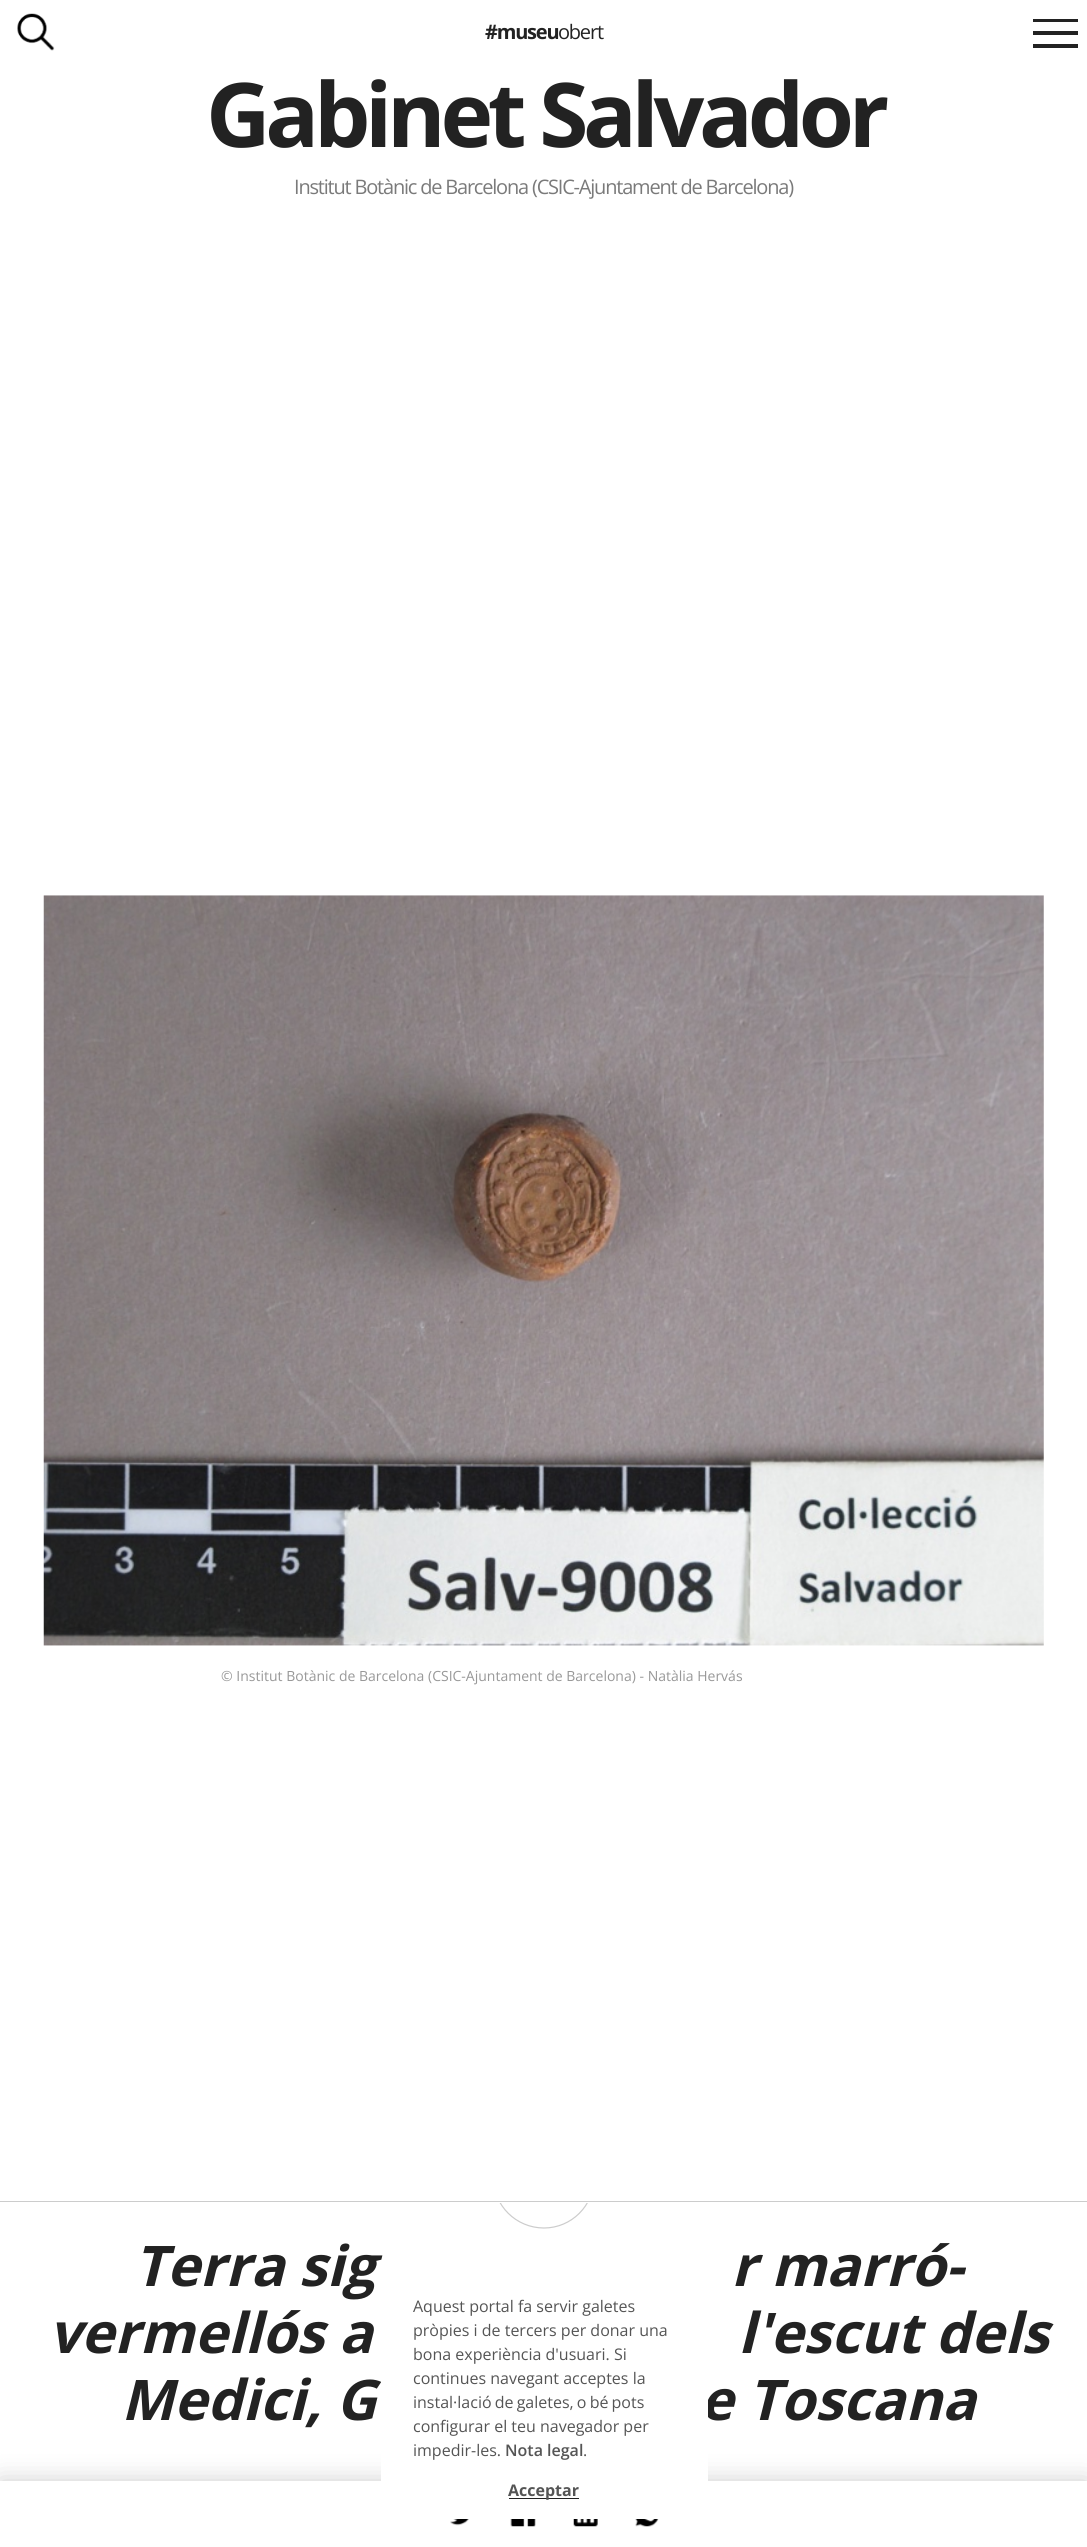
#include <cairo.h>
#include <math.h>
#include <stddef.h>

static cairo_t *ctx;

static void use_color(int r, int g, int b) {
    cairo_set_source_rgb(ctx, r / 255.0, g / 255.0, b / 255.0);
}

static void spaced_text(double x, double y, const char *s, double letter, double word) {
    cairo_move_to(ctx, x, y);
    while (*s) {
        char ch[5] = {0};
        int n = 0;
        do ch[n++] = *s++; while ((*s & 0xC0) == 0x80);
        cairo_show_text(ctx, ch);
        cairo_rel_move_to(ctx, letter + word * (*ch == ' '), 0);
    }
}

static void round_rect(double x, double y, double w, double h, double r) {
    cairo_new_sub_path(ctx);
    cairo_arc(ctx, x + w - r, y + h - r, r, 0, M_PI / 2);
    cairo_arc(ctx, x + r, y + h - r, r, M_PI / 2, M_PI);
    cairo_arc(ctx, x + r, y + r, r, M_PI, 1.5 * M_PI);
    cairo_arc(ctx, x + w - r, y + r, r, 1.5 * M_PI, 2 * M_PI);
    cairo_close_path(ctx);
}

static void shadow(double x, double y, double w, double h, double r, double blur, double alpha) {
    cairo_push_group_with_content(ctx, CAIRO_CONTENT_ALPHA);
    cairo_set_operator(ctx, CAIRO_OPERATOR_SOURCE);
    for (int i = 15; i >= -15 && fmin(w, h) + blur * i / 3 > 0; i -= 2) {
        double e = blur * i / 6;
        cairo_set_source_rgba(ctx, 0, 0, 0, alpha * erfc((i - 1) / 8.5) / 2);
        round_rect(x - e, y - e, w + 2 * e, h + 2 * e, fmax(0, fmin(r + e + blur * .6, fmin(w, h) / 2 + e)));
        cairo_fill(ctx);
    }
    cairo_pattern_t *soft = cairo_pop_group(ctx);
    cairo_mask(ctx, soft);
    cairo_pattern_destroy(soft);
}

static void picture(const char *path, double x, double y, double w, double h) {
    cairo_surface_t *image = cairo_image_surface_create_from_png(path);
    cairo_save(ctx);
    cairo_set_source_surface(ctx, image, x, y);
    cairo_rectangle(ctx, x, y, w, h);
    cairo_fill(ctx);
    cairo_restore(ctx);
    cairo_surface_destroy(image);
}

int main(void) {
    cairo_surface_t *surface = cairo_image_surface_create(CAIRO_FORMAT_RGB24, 1087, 2547);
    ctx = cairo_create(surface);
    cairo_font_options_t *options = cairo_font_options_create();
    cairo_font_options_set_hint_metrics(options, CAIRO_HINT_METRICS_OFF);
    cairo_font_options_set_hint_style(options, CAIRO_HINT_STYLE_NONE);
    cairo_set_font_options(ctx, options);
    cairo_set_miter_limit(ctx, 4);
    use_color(255, 255, 255);
    cairo_paint(ctx);
    picture("img1.png", 17, 13, 38, 38);
    use_color(34, 34, 34);
    cairo_rectangle(ctx, 1033, 31, 45, 4);
    cairo_fill(ctx);
    cairo_rectangle(ctx, 1033, 19, 45, 3);
    cairo_fill(ctx);
    cairo_rectangle(ctx, 1033, 44, 45, 4);
    cairo_fill(ctx);
    cairo_select_font_face(ctx, "Open Sans", CAIRO_FONT_SLANT_NORMAL, CAIRO_FONT_WEIGHT_BOLD);
    cairo_set_font_size(ctx, 20);
    spaced_text(485, 39, "#museu", -1.2, 0);
    cairo_select_font_face(ctx, "Open Sans", CAIRO_FONT_SLANT_NORMAL, CAIRO_FONT_WEIGHT_NORMAL);
    spaced_text(558, 39, "obert", -1.2, 0);
    cairo_select_font_face(ctx, "Open Sans", CAIRO_FONT_SLANT_NORMAL, CAIRO_FONT_WEIGHT_BOLD);
    cairo_set_font_size(ctx, 89.25);
    spaced_text(206, 147, "Gabinet Salvador", -5.3, 0);
    cairo_select_font_face(ctx, "Open Sans", CAIRO_FONT_SLANT_NORMAL, CAIRO_FONT_WEIGHT_NORMAL);
    cairo_set_font_size(ctx, 20);
    use_color(122, 122, 122);
    spaced_text(294, 194, "Institut Botànic de Barcelona (CSIC-Ajuntament de Barcelona)", -1.2, 0);
    picture("img2.png", 43, 895, 1001, 751);
    cairo_set_font_size(ctx, 14);
    use_color(152, 152, 152);
    cairo_move_to(ctx, 221, 1681);
    cairo_show_text(ctx, "© Institut Botànic de Barcelona (CSIC-Ajuntament de Barcelona) - Natàlia Hervás");
    use_color(204, 204, 204);
    cairo_rectangle(ctx, 0, 2201, 1087, 1);
    cairo_fill(ctx);
    cairo_save(ctx);
    cairo_rectangle(ctx, 0, 2203, 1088, 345);
    cairo_clip(ctx);
    cairo_new_path(ctx);
    cairo_move_to(ctx, 493.5, 2178);
    cairo_curve_to(ctx, 493.5, 2150, 516, 2127.5, 544, 2127.5);
    cairo_curve_to(ctx, 571.5, 2127.5, 594, 2150, 594, 2178);
    cairo_curve_to(ctx, 594, 2205.5, 571.5, 2228, 544, 2228);
    cairo_curve_to(ctx, 516, 2228, 493.5, 2205.5, 493.5, 2178);
    cairo_close_path(ctx);
    cairo_set_line_width(ctx, 1.2);
    cairo_stroke(ctx);
    cairo_restore(ctx);
    cairo_select_font_face(ctx, "Open Sans", CAIRO_FONT_SLANT_ITALIC, CAIRO_FONT_WEIGHT_BOLD);
    cairo_set_font_size(ctx, 56);
    use_color(34, 34, 34);
    cairo_move_to(ctx, 134, 2286);
    cairo_show_text(ctx, "Terra sig");
    cairo_move_to(ctx, 731, 2286);
    cairo_show_text(ctx, "r marró-");
    cairo_move_to(ctx, 49, 2353);
    cairo_show_text(ctx, "vermellós a");
    cairo_move_to(ctx, 738, 2353);
    cairo_show_text(ctx, "l'escut dels");
    cairo_move_to(ctx, 121, 2420);
    cairo_show_text(ctx, "Medici, G");
    cairo_move_to(ctx, 700, 2420);
    cairo_show_text(ctx, "e Toscana");
    use_color(0, 0, 0);
    shadow(0, 2481, 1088, 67, 0, 12.5, 0.2);
    use_color(255, 255, 255);
    cairo_rectangle(ctx, 0, 2481, 1087, 66);
    cairo_fill(ctx);
    picture("img3.png", 450, 2519, 19, 7);
    picture("img4.png", 510, 2519, 26, 8);
    picture("img5.png", 573, 2519, 25, 8);
    picture("img6.png", 635, 2519, 24, 8);
    cairo_rectangle(ctx, 381, 2381, 327, 100);
    cairo_fill(ctx);
    cairo_select_font_face(ctx, "Open Sans", CAIRO_FONT_SLANT_NORMAL, CAIRO_FONT_WEIGHT_NORMAL);
    cairo_set_font_size(ctx, 16);
    use_color(85, 85, 85);
    cairo_move_to(ctx, 413, 2312);
    cairo_show_text(ctx, "Aquest portal fa servir galetes");
    cairo_move_to(ctx, 413, 2336);
    cairo_show_text(ctx, "pròpies i de tercers per donar una");
    cairo_move_to(ctx, 413, 2360);
    cairo_show_text(ctx, "bona experiència d'usuari. Si");
    cairo_move_to(ctx, 413, 2384);
    cairo_show_text(ctx, "continues navegant acceptes la");
    spaced_text(413, 2408, "instal·lació de galetes, o bé pots", 0, -1);
    cairo_move_to(ctx, 413, 2432);
    cairo_show_text(ctx, "configurar el teu navegador per");
    cairo_move_to(ctx, 413, 2456);
    cairo_show_text(ctx, "impedir-les.");
    cairo_select_font_face(ctx, "Open Sans SemiBold", CAIRO_FONT_SLANT_NORMAL, CAIRO_FONT_WEIGHT_NORMAL);
    cairo_move_to(ctx, 505, 2456);
    cairo_show_text(ctx, "Nota legal");
    cairo_select_font_face(ctx, "Open Sans", CAIRO_FONT_SLANT_NORMAL, CAIRO_FONT_WEIGHT_NORMAL);
    cairo_move_to(ctx, 583, 2456);
    cairo_show_text(ctx, ".");
    use_color(34, 34, 34);
    cairo_rectangle(ctx, 509, 2498, 70, 1);
    cairo_fill(ctx);
    cairo_select_font_face(ctx, "Open Sans", CAIRO_FONT_SLANT_NORMAL, CAIRO_FONT_WEIGHT_BOLD);
    use_color(85, 85, 85);
    cairo_move_to(ctx, 508, 2496);
    cairo_show_text(ctx, "Acceptar");
    cairo_surface_write_to_png(surface, "result.png");
    cairo_font_options_destroy(options);
    cairo_destroy(ctx);
    cairo_surface_destroy(surface);
    return 0;
}
